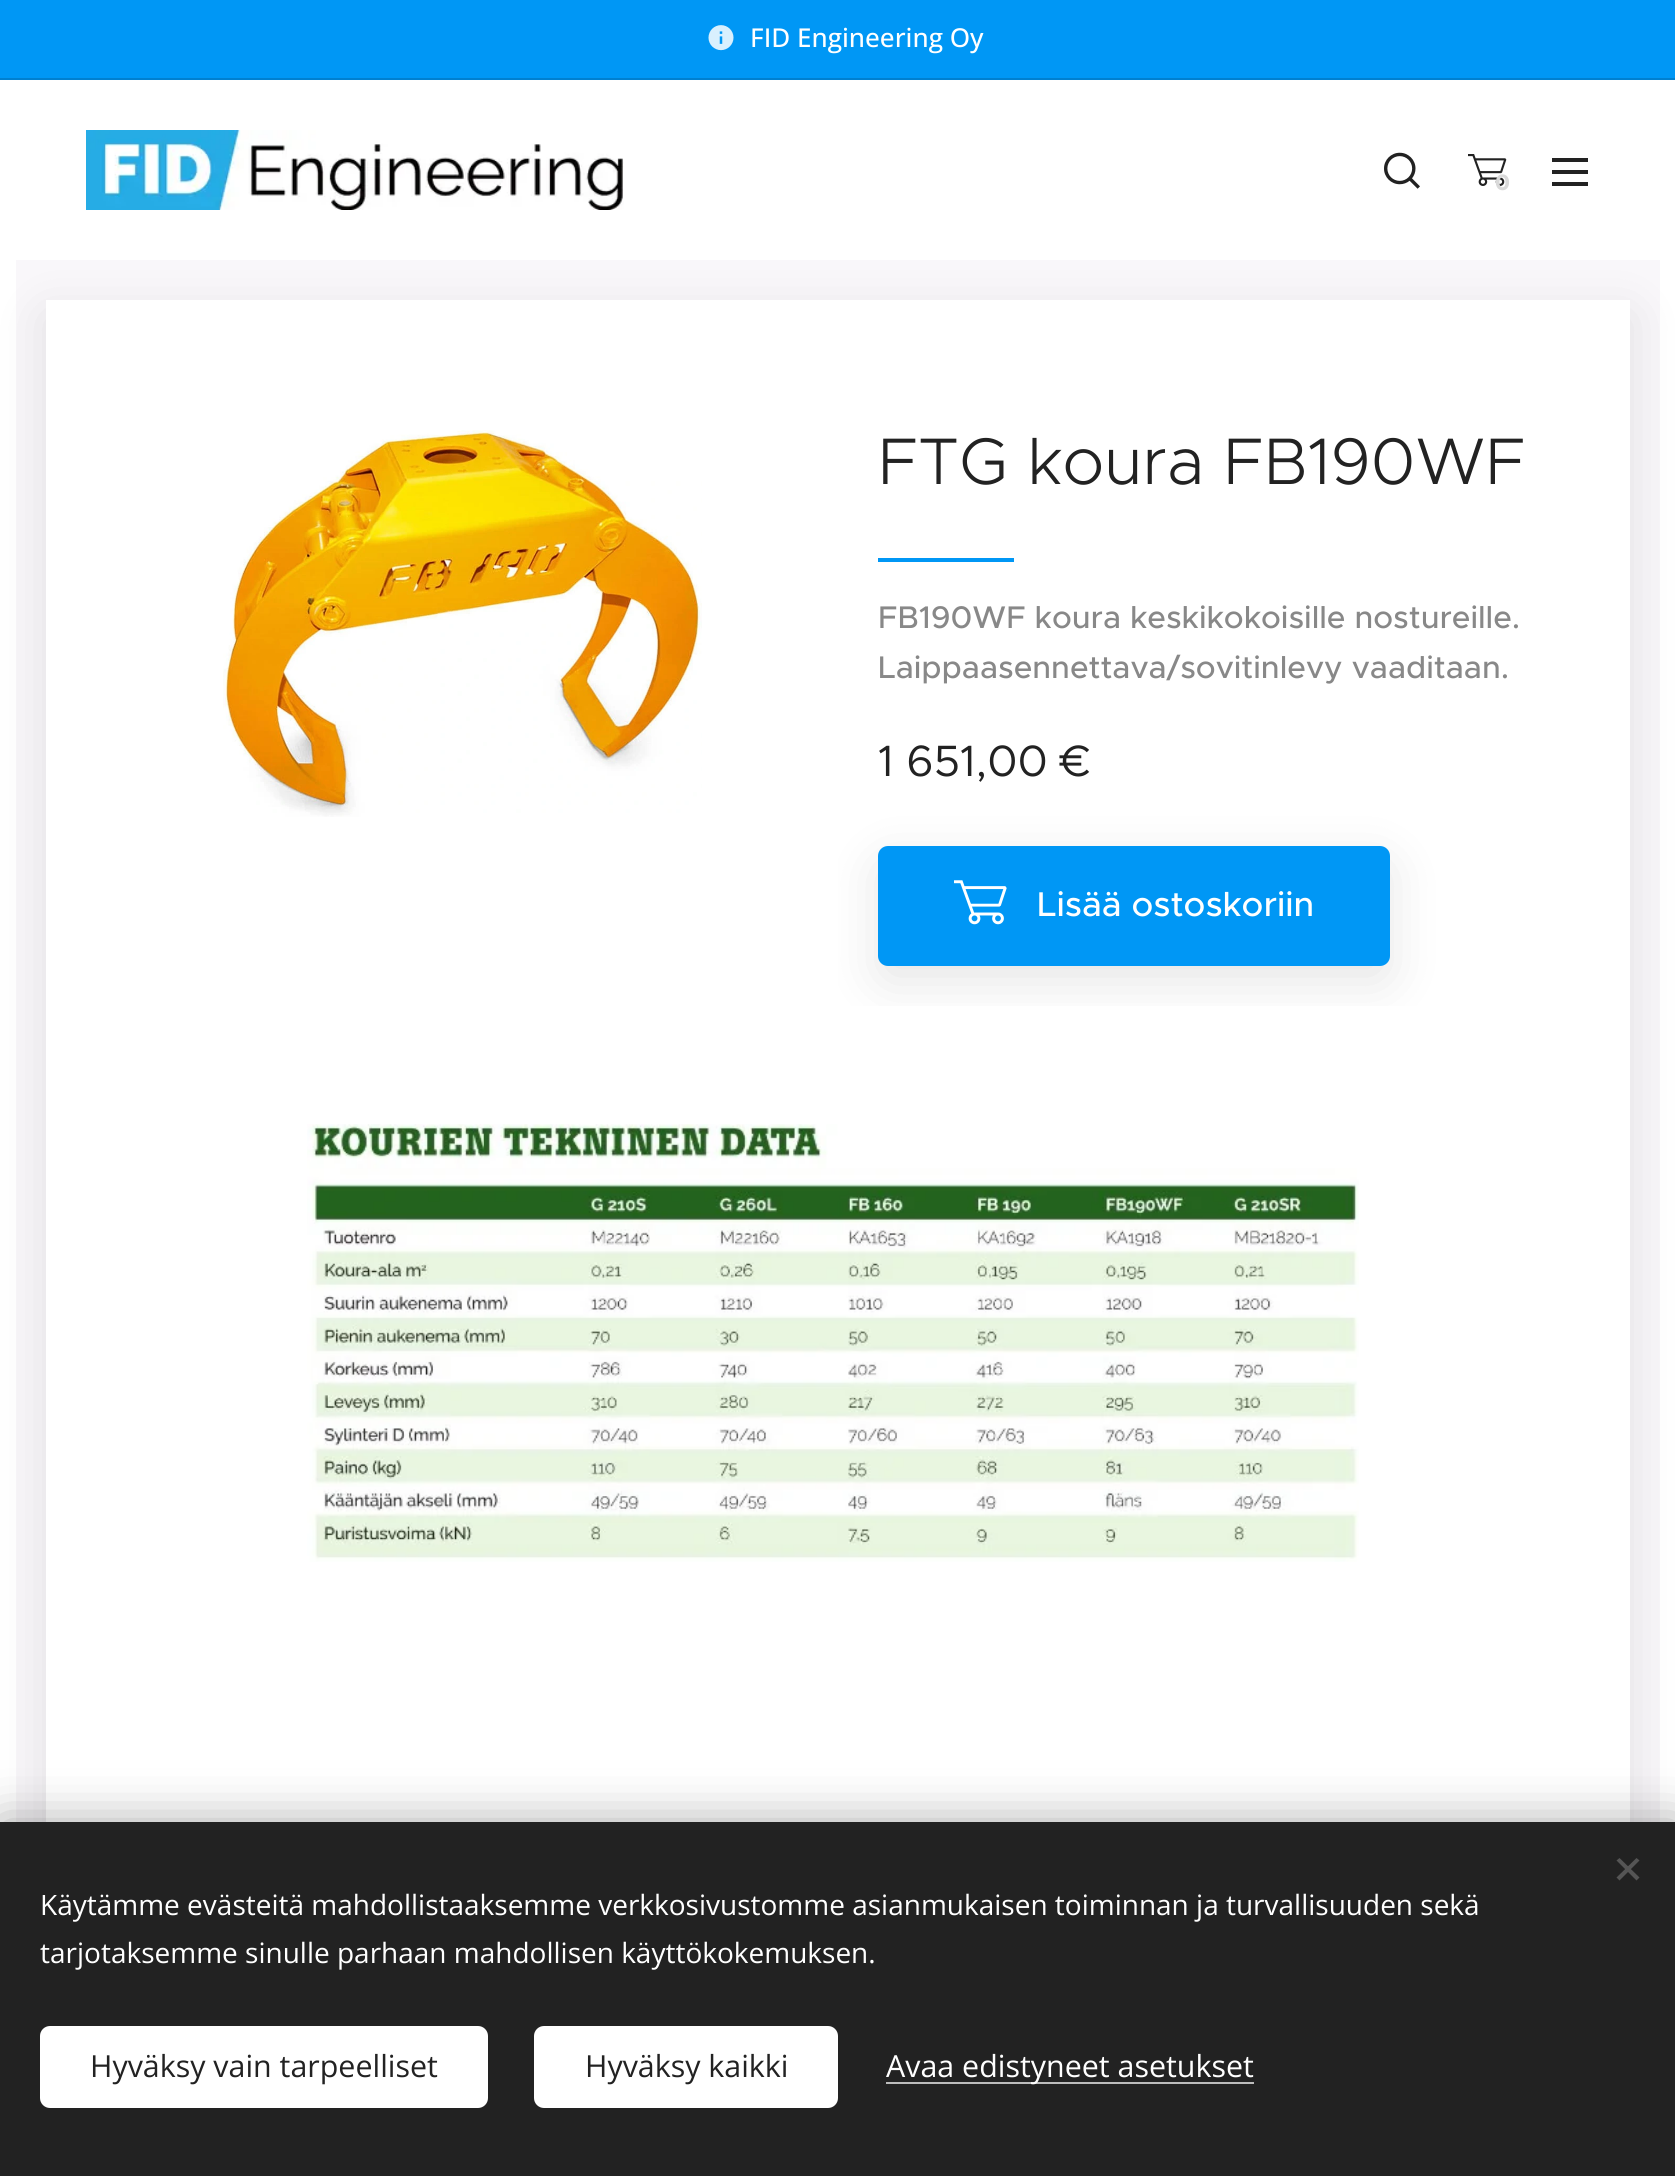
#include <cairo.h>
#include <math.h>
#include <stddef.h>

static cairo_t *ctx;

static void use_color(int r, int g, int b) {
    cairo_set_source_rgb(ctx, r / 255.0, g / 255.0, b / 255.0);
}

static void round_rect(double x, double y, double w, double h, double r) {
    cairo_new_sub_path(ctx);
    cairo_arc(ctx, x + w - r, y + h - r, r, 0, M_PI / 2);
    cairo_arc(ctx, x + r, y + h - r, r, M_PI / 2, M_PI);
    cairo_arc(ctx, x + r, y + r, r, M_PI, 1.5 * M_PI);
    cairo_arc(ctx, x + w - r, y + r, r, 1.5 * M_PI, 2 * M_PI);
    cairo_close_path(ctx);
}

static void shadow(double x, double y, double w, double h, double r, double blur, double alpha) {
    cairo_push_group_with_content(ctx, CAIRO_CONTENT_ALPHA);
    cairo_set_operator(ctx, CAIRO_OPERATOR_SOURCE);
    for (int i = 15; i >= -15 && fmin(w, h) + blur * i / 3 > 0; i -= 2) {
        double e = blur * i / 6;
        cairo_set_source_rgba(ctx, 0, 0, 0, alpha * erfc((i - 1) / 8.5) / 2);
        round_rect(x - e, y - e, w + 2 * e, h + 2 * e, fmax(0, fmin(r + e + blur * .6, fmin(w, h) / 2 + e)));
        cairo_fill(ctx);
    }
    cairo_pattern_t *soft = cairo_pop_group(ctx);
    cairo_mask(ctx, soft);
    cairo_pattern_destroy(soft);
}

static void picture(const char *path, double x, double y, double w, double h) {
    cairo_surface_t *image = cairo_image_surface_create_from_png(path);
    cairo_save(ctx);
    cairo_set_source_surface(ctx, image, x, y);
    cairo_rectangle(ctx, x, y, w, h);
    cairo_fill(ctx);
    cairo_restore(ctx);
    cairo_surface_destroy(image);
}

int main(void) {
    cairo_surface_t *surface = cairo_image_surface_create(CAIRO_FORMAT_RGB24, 1675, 2176);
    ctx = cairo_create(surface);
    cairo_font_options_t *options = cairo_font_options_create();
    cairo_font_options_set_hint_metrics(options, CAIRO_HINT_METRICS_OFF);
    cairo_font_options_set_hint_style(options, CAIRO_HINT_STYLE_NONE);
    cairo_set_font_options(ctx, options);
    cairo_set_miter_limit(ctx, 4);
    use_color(255, 255, 255);
    cairo_paint(ctx);
    use_color(0, 151, 245);
    cairo_rectangle(ctx, 0, 0, 1675, 78);
    cairo_fill(ctx);
    picture("img1.png", 708, 25, 26, 26);
    cairo_select_font_face(ctx, "Open Sans Medium", CAIRO_FONT_SLANT_NORMAL, CAIRO_FONT_WEIGHT_NORMAL);
    cairo_set_font_size(ctx, 26);
    use_color(255, 255, 255);
    cairo_move_to(ctx, 750, 47);
    cairo_show_text(ctx, "FID Engineering Oy");
    use_color(0, 128, 208);
    cairo_rectangle(ctx, 0, 78, 1675, 2);
    cairo_fill(ctx);
    picture("img2.png", 86, 130, 538, 80);
    picture("img3.png", 1384, 152, 36, 37);
    picture("img4.png", 1468, 154, 39, 32);
    cairo_select_font_face(ctx, "Montserrat", CAIRO_FONT_SLANT_NORMAL, CAIRO_FONT_WEIGHT_BOLD);
    cairo_set_font_size(ctx, 22);
    use_color(217, 217, 217);
    cairo_move_to(ctx, 1495, 190);
    cairo_show_text(ctx, "0");
    use_color(34, 34, 34);
    cairo_rectangle(ctx, 1552, 170, 36, 4);
    cairo_fill(ctx);
    cairo_rectangle(ctx, 1552, 158, 36, 4);
    cairo_fill(ctx);
    cairo_rectangle(ctx, 1552, 182, 36, 4);
    cairo_fill(ctx);
    use_color(249, 247, 250);
    cairo_rectangle(ctx, 16, 260, 1644, 1562);
    cairo_fill(ctx);
    use_color(0, 0, 0);
    shadow(46, 316, 1584, 1646, 0, 25, 0.1);
    use_color(255, 255, 255);
    cairo_rectangle(ctx, 46, 300, 1584, 1522);
    cairo_fill(ctx);
    picture("img5.png", 223, 430, 479, 387);
    cairo_select_font_face(ctx, "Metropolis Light", CAIRO_FONT_SLANT_NORMAL, CAIRO_FONT_WEIGHT_NORMAL);
    cairo_set_font_size(ctx, 66);
    use_color(34, 34, 34);
    cairo_move_to(ctx, 878, 484);
    cairo_show_text(ctx, "FTG koura FB190WF");
    use_color(0, 151, 245);
    cairo_rectangle(ctx, 878, 558, 136, 4);
    cairo_fill(ctx);
    cairo_select_font_face(ctx, "Metropolis Medium", CAIRO_FONT_SLANT_NORMAL, CAIRO_FONT_WEIGHT_NORMAL);
    cairo_set_font_size(ctx, 31.4);
    use_color(136, 136, 136);
    cairo_move_to(ctx, 878, 628);
    cairo_show_text(ctx, "FB190WF koura keskikokoisille nostureille.");
    cairo_move_to(ctx, 878, 678);
    cairo_show_text(ctx, "Laippaasennettava/sovitinlevy vaaditaan.");
    cairo_select_font_face(ctx, "Metropolis", CAIRO_FONT_SLANT_NORMAL, CAIRO_FONT_WEIGHT_NORMAL);
    cairo_set_font_size(ctx, 44);
    use_color(34, 34, 34);
    cairo_move_to(ctx, 878, 776);
    cairo_show_text(ctx, "1 651,00 €");
    cairo_save(ctx);
    cairo_rectangle(ctx, 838, 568, 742, 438);
    cairo_clip(ctx);
    use_color(0, 0, 0);
    shadow(878, 862, 512, 120, 10, 25, 0.1);
    cairo_restore(ctx);
    use_color(0, 151, 245);
    round_rect(880, 848, 508, 116, 8);
    cairo_fill_preserve(ctx);
    cairo_set_line_width(ctx, 4);
    cairo_stroke(ctx);
    picture("img6.png", 954, 880, 53, 45);
    cairo_select_font_face(ctx, "Metropolis Medium", CAIRO_FONT_SLANT_NORMAL, CAIRO_FONT_WEIGHT_NORMAL);
    cairo_set_font_size(ctx, 34.5);
    use_color(255, 255, 255);
    cairo_move_to(ctx, 1037, 916);
    cairo_show_text(ctx, "Lisää ostoskoriin");
    picture("img7.png", 307, 1124, 1052, 438);
    use_color(0, 0, 0);
    shadow(0, 1822, 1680, 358, 0, 25, 0.33);
    use_color(34, 34, 34);
    cairo_rectangle(ctx, 0, 1822, 1675, 354);
    cairo_fill(ctx);
    use_color(85, 85, 85);
    cairo_new_path(ctx);
    cairo_move_to(ctx, 1616.5, 1877.5);
    cairo_line_to(ctx, 1636.5, 1858);
    cairo_line_to(ctx, 1639.5, 1860.5);
    cairo_line_to(ctx, 1619.5, 1880.5);
    cairo_close_path(ctx);
    cairo_fill(ctx);
    cairo_new_path(ctx);
    cairo_move_to(ctx, 1619.5, 1858);
    cairo_line_to(ctx, 1639.5, 1877.5);
    cairo_line_to(ctx, 1636.5, 1880.5);
    cairo_line_to(ctx, 1616.5, 1860.5);
    cairo_close_path(ctx);
    cairo_fill(ctx);
    cairo_select_font_face(ctx, "Open Sans", CAIRO_FONT_SLANT_NORMAL, CAIRO_FONT_WEIGHT_NORMAL);
    cairo_set_font_size(ctx, 28);
    use_color(255, 255, 255);
    cairo_move_to(ctx, 40, 1915);
    cairo_show_text(ctx, "Käytämme evästeitä mahdollistaaksemme verkkosivustomme asianmukaisen toiminnan ja turvallisuuden sekä");
    cairo_move_to(ctx, 40, 1963);
    cairo_show_text(ctx, "tarjotaksemme sinulle parhaan mahdollisen käyttökokemuksen.");
    round_rect(40, 2026, 448, 82, 10);
    cairo_fill(ctx);
    cairo_set_font_size(ctx, 30.4);
    use_color(34, 34, 34);
    cairo_move_to(ctx, 90, 2077);
    cairo_show_text(ctx, "Hyväksy vain tarpeelliset");
    use_color(255, 255, 255);
    round_rect(534, 2026, 304, 82, 10);
    cairo_fill(ctx);
    use_color(34, 34, 34);
    cairo_move_to(ctx, 585, 2077);
    cairo_show_text(ctx, "Hyväksy kaikki");
    use_color(189, 189, 189);
    cairo_rectangle(ctx, 886, 2082, 368, 2);
    cairo_fill(ctx);
    use_color(255, 255, 255);
    cairo_move_to(ctx, 886, 2077);
    cairo_show_text(ctx, "Avaa edistyneet asetukset");
    cairo_surface_write_to_png(surface, "result.png");
    cairo_font_options_destroy(options);
    cairo_destroy(ctx);
    cairo_surface_destroy(surface);
    return 0;
}
